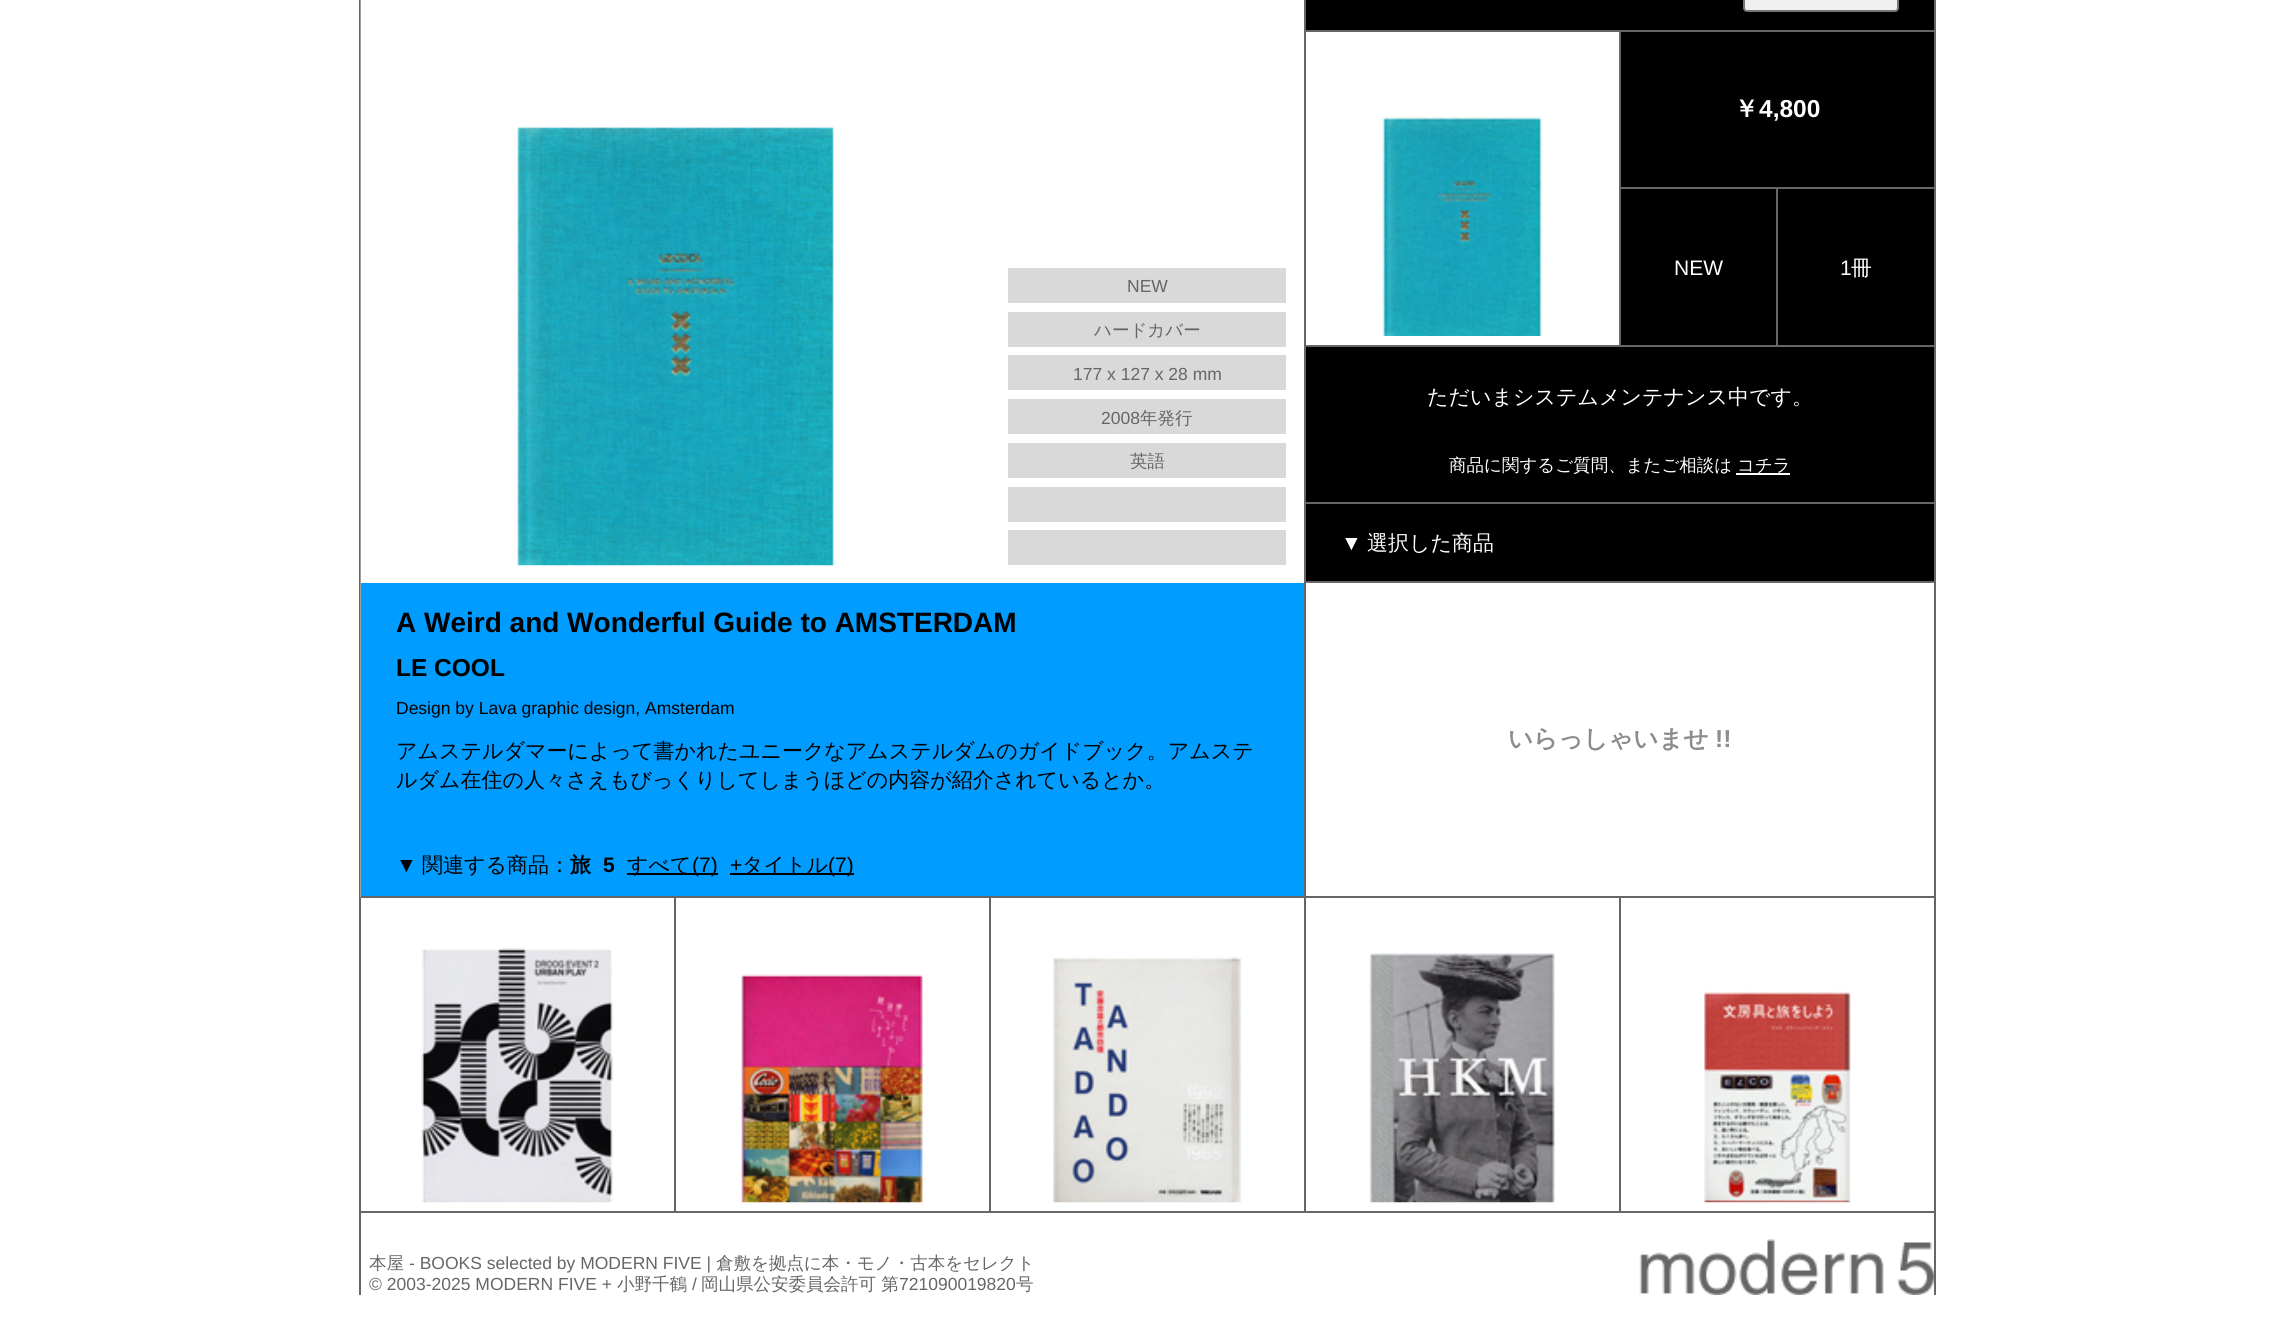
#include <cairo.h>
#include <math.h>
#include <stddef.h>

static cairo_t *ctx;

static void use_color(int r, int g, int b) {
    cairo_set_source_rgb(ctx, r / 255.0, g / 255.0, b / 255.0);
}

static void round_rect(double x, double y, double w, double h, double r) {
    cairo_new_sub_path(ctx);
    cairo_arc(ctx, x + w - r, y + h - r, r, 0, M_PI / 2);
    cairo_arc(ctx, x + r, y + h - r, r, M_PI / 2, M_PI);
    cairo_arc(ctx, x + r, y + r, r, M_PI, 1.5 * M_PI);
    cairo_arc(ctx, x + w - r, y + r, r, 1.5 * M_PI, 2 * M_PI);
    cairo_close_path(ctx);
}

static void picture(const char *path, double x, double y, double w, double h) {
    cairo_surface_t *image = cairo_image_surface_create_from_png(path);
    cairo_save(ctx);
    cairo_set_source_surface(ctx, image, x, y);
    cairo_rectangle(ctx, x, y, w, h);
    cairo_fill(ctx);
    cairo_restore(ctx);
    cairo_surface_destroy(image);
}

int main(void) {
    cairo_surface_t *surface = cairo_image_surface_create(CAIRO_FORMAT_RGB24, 2294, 1337);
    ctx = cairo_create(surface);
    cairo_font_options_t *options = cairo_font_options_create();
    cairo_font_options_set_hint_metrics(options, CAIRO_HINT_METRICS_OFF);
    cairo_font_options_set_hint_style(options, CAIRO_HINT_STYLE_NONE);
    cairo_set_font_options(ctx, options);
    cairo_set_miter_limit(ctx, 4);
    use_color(255, 255, 255);
    cairo_paint(ctx);
    use_color(102, 102, 102);
    cairo_rectangle(ctx, 1934, 0, 2, 1295);
    cairo_fill(ctx);
    cairo_rectangle(ctx, 359, 0, 2, 1295);
    cairo_fill(ctx);
    picture("img1.png", 360, 0, 1, 898);
    cairo_rectangle(ctx, 361, 896, 1573, 2);
    cairo_fill(ctx);
    cairo_rectangle(ctx, 1304, 0, 2, 896);
    cairo_fill(ctx);
    picture("img2.png", 517, 127, 319, 439);
    use_color(217, 217, 217);
    cairo_rectangle(ctx, 1008, 268, 278, 35);
    cairo_fill(ctx);
    cairo_select_font_face(ctx, "Liberation Sans", CAIRO_FONT_SLANT_NORMAL, CAIRO_FONT_WEIGHT_NORMAL);
    cairo_set_font_size(ctx, 17.5);
    use_color(102, 102, 102);
    cairo_move_to(ctx, 1127, 292);
    cairo_show_text(ctx, "NEW");
    use_color(217, 217, 217);
    cairo_rectangle(ctx, 1008, 312, 278, 35);
    cairo_fill(ctx);
    cairo_select_font_face(ctx, "WenQuanYi Zen Hei Medium", CAIRO_FONT_SLANT_NORMAL, CAIRO_FONT_WEIGHT_NORMAL);
    use_color(102, 102, 102);
    cairo_move_to(ctx, 1094, 336);
    cairo_show_text(ctx, "ハードカバー");
    use_color(217, 217, 217);
    cairo_rectangle(ctx, 1008, 355, 278, 35);
    cairo_fill(ctx);
    cairo_select_font_face(ctx, "Liberation Sans", CAIRO_FONT_SLANT_NORMAL, CAIRO_FONT_WEIGHT_NORMAL);
    use_color(102, 102, 102);
    cairo_move_to(ctx, 1073, 380);
    cairo_show_text(ctx, "177 x 127 x 28 mm");
    use_color(217, 217, 217);
    cairo_rectangle(ctx, 1008, 399, 278, 35);
    cairo_fill(ctx);
    use_color(102, 102, 102);
    cairo_move_to(ctx, 1101, 424);
    cairo_show_text(ctx, "2008");
    cairo_select_font_face(ctx, "WenQuanYi Zen Hei Medium", CAIRO_FONT_SLANT_NORMAL, CAIRO_FONT_WEIGHT_NORMAL);
    cairo_move_to(ctx, 1140, 424);
    cairo_show_text(ctx, "年発行");
    use_color(217, 217, 217);
    cairo_rectangle(ctx, 1008, 443, 278, 35);
    cairo_fill(ctx);
    use_color(102, 102, 102);
    cairo_move_to(ctx, 1130, 467);
    cairo_show_text(ctx, "英語");
    use_color(217, 217, 217);
    cairo_rectangle(ctx, 1008, 487, 278, 35);
    cairo_fill(ctx);
    cairo_rectangle(ctx, 1008, 530, 278, 35);
    cairo_fill(ctx);
    use_color(0, 156, 255);
    cairo_rectangle(ctx, 361, 583, 943, 313);
    cairo_fill(ctx);
    cairo_select_font_face(ctx, "Liberation Sans", CAIRO_FONT_SLANT_NORMAL, CAIRO_FONT_WEIGHT_BOLD);
    cairo_set_font_size(ctx, 28);
    use_color(0, 0, 0);
    cairo_move_to(ctx, 396, 632);
    cairo_show_text(ctx, "A Weird and Wonderful Guide to AMSTERDAM");
    cairo_set_font_size(ctx, 24.5);
    cairo_move_to(ctx, 396, 676);
    cairo_show_text(ctx, "LE COOL");
    cairo_select_font_face(ctx, "Liberation Sans", CAIRO_FONT_SLANT_NORMAL, CAIRO_FONT_WEIGHT_NORMAL);
    cairo_set_font_size(ctx, 17.5);
    cairo_move_to(ctx, 396, 714);
    cairo_show_text(ctx, "Design by Lava graphic design, Amsterdam");
    cairo_select_font_face(ctx, "WenQuanYi Zen Hei Medium", CAIRO_FONT_SLANT_NORMAL, CAIRO_FONT_WEIGHT_NORMAL);
    cairo_set_font_size(ctx, 21);
    cairo_move_to(ctx, 396, 758);
    cairo_show_text(ctx, "アムステルダマーによって書かれたユニークなアムステルダムのガイドブック。アムステ");
    cairo_move_to(ctx, 396, 787);
    cairo_show_text(ctx, "ルダム在住の人々さえもびっくりしてしまうほどの内容が紹介されているとか。");
    cairo_select_font_face(ctx, "Liberation Sans", CAIRO_FONT_SLANT_NORMAL, CAIRO_FONT_WEIGHT_NORMAL);
    cairo_move_to(ctx, 396, 872);
    cairo_show_text(ctx, "▼");
    cairo_select_font_face(ctx, "WenQuanYi Zen Hei Medium", CAIRO_FONT_SLANT_NORMAL, CAIRO_FONT_WEIGHT_NORMAL);
    cairo_move_to(ctx, 422, 872);
    cairo_show_text(ctx, "関連する商品：");
    cairo_select_font_face(ctx, "WenQuanYi Zen Hei", CAIRO_FONT_SLANT_NORMAL, CAIRO_FONT_WEIGHT_BOLD);
    cairo_move_to(ctx, 570, 872);
    cairo_show_text(ctx, "旅");
    cairo_select_font_face(ctx, "Liberation Sans", CAIRO_FONT_SLANT_NORMAL, CAIRO_FONT_WEIGHT_BOLD);
    cairo_move_to(ctx, 603, 872);
    cairo_show_text(ctx, "5");
    cairo_rectangle(ctx, 627, 873, 91, 2);
    cairo_fill(ctx);
    cairo_select_font_face(ctx, "WenQuanYi Zen Hei Medium", CAIRO_FONT_SLANT_NORMAL, CAIRO_FONT_WEIGHT_NORMAL);
    cairo_move_to(ctx, 627, 872);
    cairo_show_text(ctx, "すべて");
    cairo_select_font_face(ctx, "Liberation Sans", CAIRO_FONT_SLANT_NORMAL, CAIRO_FONT_WEIGHT_NORMAL);
    cairo_move_to(ctx, 692, 872);
    cairo_show_text(ctx, "(7)");
    cairo_move_to(ctx, 730, 872);
    cairo_show_text(ctx, "+");
    cairo_rectangle(ctx, 730, 873, 124, 2);
    cairo_fill(ctx);
    cairo_select_font_face(ctx, "WenQuanYi Zen Hei Medium", CAIRO_FONT_SLANT_NORMAL, CAIRO_FONT_WEIGHT_NORMAL);
    cairo_move_to(ctx, 742, 872);
    cairo_show_text(ctx, "タイトル");
    cairo_select_font_face(ctx, "Liberation Sans", CAIRO_FONT_SLANT_NORMAL, CAIRO_FONT_WEIGHT_NORMAL);
    cairo_move_to(ctx, 828, 872);
    cairo_show_text(ctx, "(7)");
    cairo_rectangle(ctx, 1306, 0, 628, 581);
    cairo_fill(ctx);
    use_color(239, 239, 239);
    round_rect(1744, -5, 154, 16, 3);
    cairo_fill_preserve(ctx);
    use_color(118, 118, 118);
    cairo_stroke(ctx);
    use_color(102, 102, 102);
    cairo_rectangle(ctx, 1306, 30, 628, 2);
    cairo_fill(ctx);
    use_color(255, 255, 255);
    cairo_rectangle(ctx, 1306, 32, 313, 313);
    cairo_fill(ctx);
    use_color(102, 102, 102);
    cairo_rectangle(ctx, 1619, 32, 2, 313);
    cairo_fill(ctx);
    picture("img3.png", 1382, 116, 163, 220);
    cairo_rectangle(ctx, 1621, 187, 313, 2);
    cairo_fill(ctx);
    cairo_select_font_face(ctx, "WenQuanYi Zen Hei", CAIRO_FONT_SLANT_NORMAL, CAIRO_FONT_WEIGHT_BOLD);
    cairo_set_font_size(ctx, 24.5);
    use_color(255, 255, 255);
    cairo_move_to(ctx, 1734, 117);
    cairo_show_text(ctx, "￥");
    cairo_select_font_face(ctx, "Liberation Sans", CAIRO_FONT_SLANT_NORMAL, CAIRO_FONT_WEIGHT_BOLD);
    cairo_move_to(ctx, 1759, 117);
    cairo_show_text(ctx, "4,800");
    use_color(102, 102, 102);
    cairo_rectangle(ctx, 1776, 189, 2, 156);
    cairo_fill(ctx);
    cairo_select_font_face(ctx, "Liberation Sans", CAIRO_FONT_SLANT_NORMAL, CAIRO_FONT_WEIGHT_NORMAL);
    cairo_set_font_size(ctx, 21);
    use_color(255, 255, 255);
    cairo_move_to(ctx, 1674, 275);
    cairo_show_text(ctx, "NEW");
    cairo_move_to(ctx, 1840, 275);
    cairo_show_text(ctx, "1");
    cairo_select_font_face(ctx, "WenQuanYi Zen Hei Medium", CAIRO_FONT_SLANT_NORMAL, CAIRO_FONT_WEIGHT_NORMAL);
    cairo_move_to(ctx, 1851, 275);
    cairo_show_text(ctx, "冊");
    use_color(102, 102, 102);
    cairo_rectangle(ctx, 1306, 345, 628, 2);
    cairo_fill(ctx);
    use_color(255, 255, 255);
    cairo_move_to(ctx, 1427, 404);
    cairo_show_text(ctx, "ただいまシステムメンテナンス中です。");
    cairo_set_font_size(ctx, 17.5);
    cairo_move_to(ctx, 1449, 471);
    cairo_show_text(ctx, "商品に関するご質問、またご相談は");
    cairo_rectangle(ctx, 1736, 473, 54, 2);
    cairo_fill(ctx);
    cairo_move_to(ctx, 1737, 471);
    cairo_show_text(ctx, "コチラ");
    use_color(102, 102, 102);
    cairo_rectangle(ctx, 1306, 502, 628, 2);
    cairo_fill(ctx);
    cairo_select_font_face(ctx, "Liberation Sans", CAIRO_FONT_SLANT_NORMAL, CAIRO_FONT_WEIGHT_NORMAL);
    cairo_set_font_size(ctx, 21);
    use_color(255, 255, 255);
    cairo_move_to(ctx, 1341, 550);
    cairo_show_text(ctx, "▼");
    cairo_select_font_face(ctx, "WenQuanYi Zen Hei Medium", CAIRO_FONT_SLANT_NORMAL, CAIRO_FONT_WEIGHT_NORMAL);
    cairo_move_to(ctx, 1367, 550);
    cairo_show_text(ctx, "選択した商品");
    use_color(102, 102, 102);
    cairo_rectangle(ctx, 1306, 581, 628, 2);
    cairo_fill(ctx);
    cairo_select_font_face(ctx, "WenQuanYi Zen Hei", CAIRO_FONT_SLANT_NORMAL, CAIRO_FONT_WEIGHT_BOLD);
    cairo_set_font_size(ctx, 24.5);
    use_color(140, 140, 140);
    cairo_move_to(ctx, 1508, 747);
    cairo_show_text(ctx, "いらっしゃいませ");
    cairo_select_font_face(ctx, "Liberation Sans", CAIRO_FONT_SLANT_NORMAL, CAIRO_FONT_WEIGHT_BOLD);
    cairo_move_to(ctx, 1715, 747);
    cairo_show_text(ctx, "!!");
    use_color(102, 102, 102);
    cairo_rectangle(ctx, 674, 898, 2, 315);
    cairo_fill(ctx);
    cairo_rectangle(ctx, 361, 1211, 315, 2);
    cairo_fill(ctx);
    picture("img4.png", 421, 948, 192, 255);
    cairo_rectangle(ctx, 989, 898, 2, 315);
    cairo_fill(ctx);
    cairo_rectangle(ctx, 676, 1211, 315, 2);
    cairo_fill(ctx);
    picture("img5.png", 739, 974, 190, 229);
    cairo_rectangle(ctx, 1304, 898, 2, 315);
    cairo_fill(ctx);
    cairo_rectangle(ctx, 991, 1211, 315, 2);
    cairo_fill(ctx);
    picture("img6.png", 1053, 956, 189, 247);
    cairo_rectangle(ctx, 1619, 898, 2, 315);
    cairo_fill(ctx);
    cairo_rectangle(ctx, 1306, 1211, 628, 2);
    cairo_fill(ctx);
    picture("img7.png", 1369, 953, 186, 250);
    picture("img8.png", 1704, 991, 147, 212);
    cairo_select_font_face(ctx, "WenQuanYi Zen Hei Medium", CAIRO_FONT_SLANT_NORMAL, CAIRO_FONT_WEIGHT_NORMAL);
    cairo_set_font_size(ctx, 17.5);
    cairo_move_to(ctx, 369, 1269);
    cairo_show_text(ctx, "本屋");
    cairo_select_font_face(ctx, "Liberation Sans", CAIRO_FONT_SLANT_NORMAL, CAIRO_FONT_WEIGHT_NORMAL);
    cairo_move_to(ctx, 409, 1269);
    cairo_show_text(ctx, "- BOOKS selected by MODERN FIVE |");
    cairo_select_font_face(ctx, "WenQuanYi Zen Hei Medium", CAIRO_FONT_SLANT_NORMAL, CAIRO_FONT_WEIGHT_NORMAL);
    cairo_move_to(ctx, 716, 1269);
    cairo_show_text(ctx, "倉敷を拠点に本・モノ・古本をセレクト");
    cairo_select_font_face(ctx, "Liberation Sans", CAIRO_FONT_SLANT_NORMAL, CAIRO_FONT_WEIGHT_NORMAL);
    cairo_move_to(ctx, 369, 1290);
    cairo_show_text(ctx, "© 2003-2025 MODERN FIVE +");
    cairo_select_font_face(ctx, "WenQuanYi Zen Hei Medium", CAIRO_FONT_SLANT_NORMAL, CAIRO_FONT_WEIGHT_NORMAL);
    cairo_move_to(ctx, 617, 1290);
    cairo_show_text(ctx, "小野千鶴");
    cairo_select_font_face(ctx, "Liberation Sans", CAIRO_FONT_SLANT_NORMAL, CAIRO_FONT_WEIGHT_NORMAL);
    cairo_move_to(ctx, 692, 1290);
    cairo_show_text(ctx, "/");
    cairo_select_font_face(ctx, "WenQuanYi Zen Hei Medium", CAIRO_FONT_SLANT_NORMAL, CAIRO_FONT_WEIGHT_NORMAL);
    cairo_move_to(ctx, 701, 1290);
    cairo_show_text(ctx, "岡山県公安委員会許可 第");
    cairo_select_font_face(ctx, "Liberation Sans", CAIRO_FONT_SLANT_NORMAL, CAIRO_FONT_WEIGHT_NORMAL);
    cairo_move_to(ctx, 899, 1290);
    cairo_show_text(ctx, "721090019820");
    cairo_select_font_face(ctx, "WenQuanYi Zen Hei Medium", CAIRO_FONT_SLANT_NORMAL, CAIRO_FONT_WEIGHT_NORMAL);
    cairo_move_to(ctx, 1016, 1290);
    cairo_show_text(ctx, "号");
    picture("img9.png", 1639, 1239, 295, 56);
    cairo_surface_write_to_png(surface, "result.png");
    cairo_font_options_destroy(options);
    cairo_destroy(ctx);
    cairo_surface_destroy(surface);
    return 0;
}
